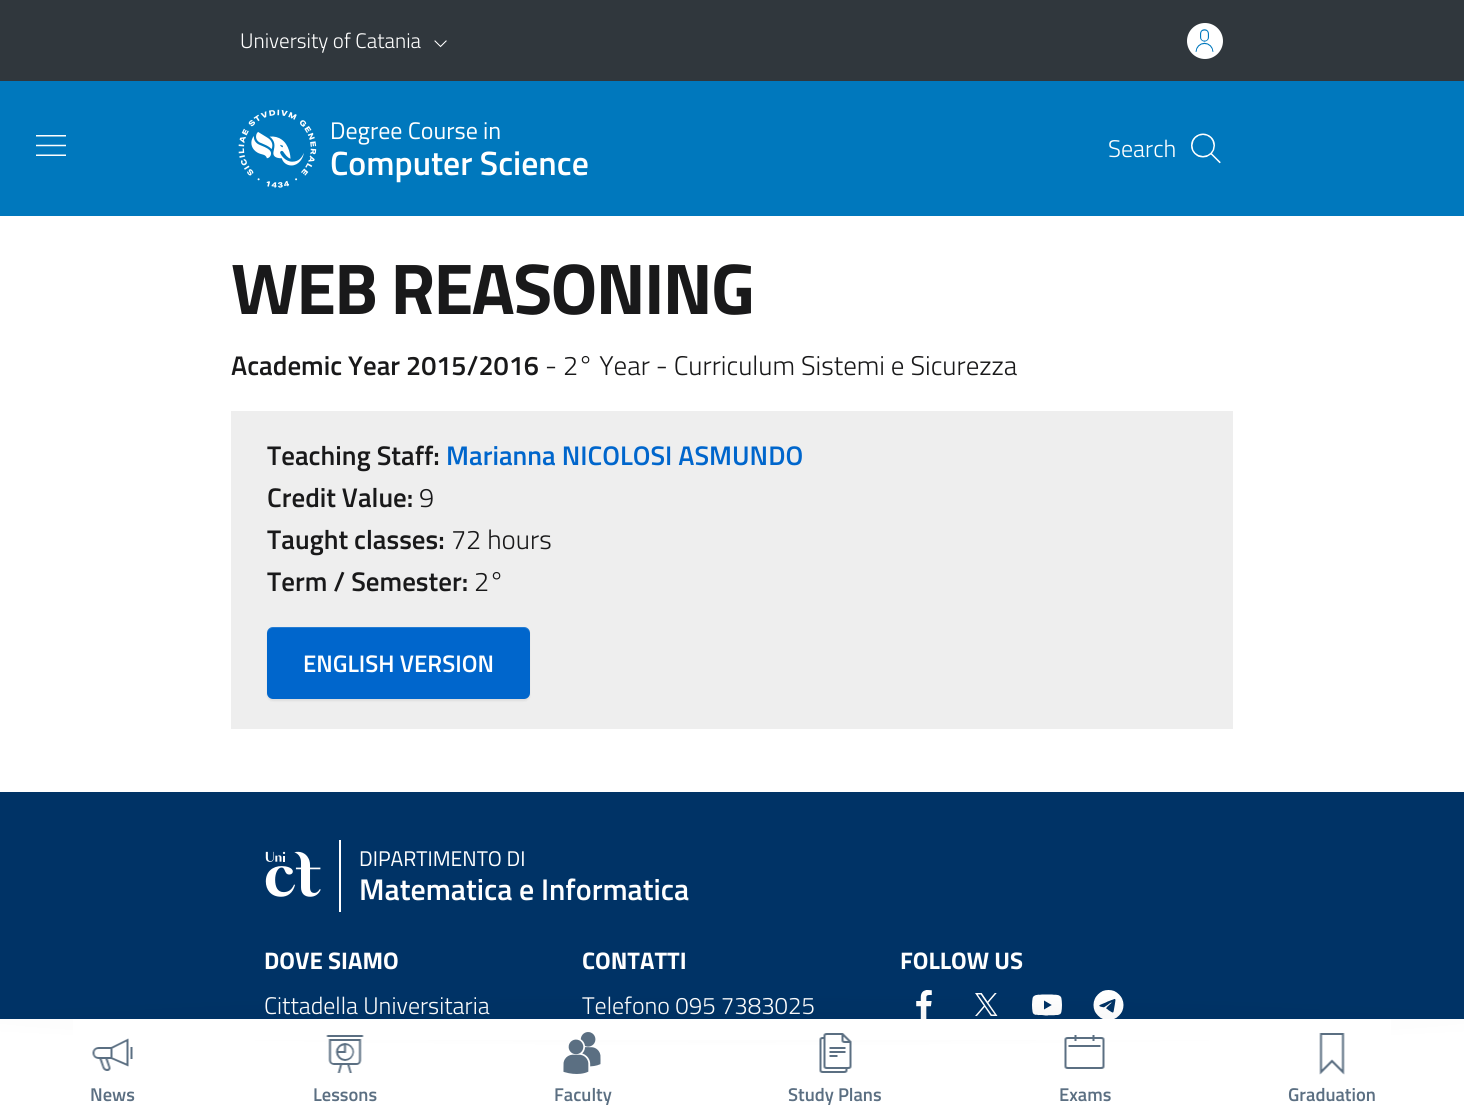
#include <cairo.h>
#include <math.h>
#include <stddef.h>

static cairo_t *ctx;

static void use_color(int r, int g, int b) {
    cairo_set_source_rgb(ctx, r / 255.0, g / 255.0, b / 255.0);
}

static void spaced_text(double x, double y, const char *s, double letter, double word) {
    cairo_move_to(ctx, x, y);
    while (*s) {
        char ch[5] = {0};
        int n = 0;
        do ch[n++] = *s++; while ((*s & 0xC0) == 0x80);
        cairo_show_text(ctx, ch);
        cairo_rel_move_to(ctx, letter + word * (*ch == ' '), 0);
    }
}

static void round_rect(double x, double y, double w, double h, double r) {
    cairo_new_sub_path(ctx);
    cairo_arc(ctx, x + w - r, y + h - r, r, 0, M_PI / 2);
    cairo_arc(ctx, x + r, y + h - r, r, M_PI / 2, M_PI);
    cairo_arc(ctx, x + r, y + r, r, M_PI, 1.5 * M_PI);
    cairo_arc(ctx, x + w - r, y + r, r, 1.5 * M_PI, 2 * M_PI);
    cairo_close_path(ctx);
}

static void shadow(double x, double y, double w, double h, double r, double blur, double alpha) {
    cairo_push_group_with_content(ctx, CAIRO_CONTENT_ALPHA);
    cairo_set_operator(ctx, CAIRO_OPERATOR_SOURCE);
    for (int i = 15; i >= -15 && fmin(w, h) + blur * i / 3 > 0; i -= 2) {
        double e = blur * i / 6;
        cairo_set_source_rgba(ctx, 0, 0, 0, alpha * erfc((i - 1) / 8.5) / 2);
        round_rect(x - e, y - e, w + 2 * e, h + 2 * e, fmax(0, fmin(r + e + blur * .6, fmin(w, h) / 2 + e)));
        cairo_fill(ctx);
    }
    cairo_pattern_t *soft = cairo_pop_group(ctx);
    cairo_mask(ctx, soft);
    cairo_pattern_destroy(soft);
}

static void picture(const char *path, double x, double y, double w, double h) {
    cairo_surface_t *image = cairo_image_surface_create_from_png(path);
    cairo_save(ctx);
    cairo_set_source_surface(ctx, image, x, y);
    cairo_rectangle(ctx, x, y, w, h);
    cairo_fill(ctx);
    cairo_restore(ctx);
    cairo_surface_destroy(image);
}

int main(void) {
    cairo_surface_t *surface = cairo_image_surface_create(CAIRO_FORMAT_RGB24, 1464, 1114);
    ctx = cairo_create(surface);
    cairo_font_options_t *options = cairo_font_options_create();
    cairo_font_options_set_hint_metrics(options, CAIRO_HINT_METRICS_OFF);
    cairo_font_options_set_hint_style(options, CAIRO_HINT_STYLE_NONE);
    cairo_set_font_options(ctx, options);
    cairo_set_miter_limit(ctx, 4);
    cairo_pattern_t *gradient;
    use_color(255, 255, 255);
    cairo_paint(ctx);
    use_color(48, 55, 61);
    cairo_rectangle(ctx, 0, 0, 1464, 81);
    cairo_fill(ctx);
    cairo_select_font_face(ctx, "Titillium Web Light", CAIRO_FONT_SLANT_NORMAL, CAIRO_FONT_WEIGHT_NORMAL);
    cairo_set_font_size(ctx, 21);
    use_color(255, 255, 255);
    cairo_move_to(ctx, 240, 48);
    cairo_show_text(ctx, "University of Catania");
    picture("img1.png", 434, 40, 13, 8);
    cairo_arc(ctx, 1205, 41, 18, 0, 2 * M_PI);
    cairo_fill(ctx);
    picture("img2.png", 1195, 29, 19, 23);
    use_color(0, 120, 189);
    cairo_rectangle(ctx, 0, 81, 1464, 135);
    cairo_fill(ctx);
    picture("img3.png", 36, 135, 30, 21);
    picture("img4.png", 238, 109, 79, 79);
    cairo_select_font_face(ctx, "Titillium Web", CAIRO_FONT_SLANT_NORMAL, CAIRO_FONT_WEIGHT_NORMAL);
    cairo_set_font_size(ctx, 24);
    use_color(255, 255, 255);
    cairo_move_to(ctx, 330, 139);
    cairo_show_text(ctx, "Degree Course in");
    cairo_select_font_face(ctx, "Titillium Web SemiBold", CAIRO_FONT_SLANT_NORMAL, CAIRO_FONT_WEIGHT_NORMAL);
    cairo_set_font_size(ctx, 33.75);
    cairo_move_to(ctx, 330, 175);
    cairo_show_text(ctx, "Computer Science");
    cairo_select_font_face(ctx, "Titillium Web Light", CAIRO_FONT_SLANT_NORMAL, CAIRO_FONT_WEIGHT_NORMAL);
    cairo_set_font_size(ctx, 24);
    cairo_move_to(ctx, 1108, 157);
    cairo_show_text(ctx, "Search");
    picture("img5.png", 1191, 133, 30, 31);
    cairo_select_font_face(ctx, "Titillium Web", CAIRO_FONT_SLANT_NORMAL, CAIRO_FONT_WEIGHT_BOLD);
    cairo_set_font_size(ctx, 72);
    use_color(25, 25, 26);
    spaced_text(231, 314, "WEB REASONING", -1.75, 0);
    cairo_select_font_face(ctx, "Titillium Web SemiBold", CAIRO_FONT_SLANT_NORMAL, CAIRO_FONT_WEIGHT_NORMAL);
    cairo_set_font_size(ctx, 27);
    cairo_move_to(ctx, 231, 375);
    cairo_show_text(ctx, "Academic Year 2015/2016");
    cairo_select_font_face(ctx, "Titillium Web Light", CAIRO_FONT_SLANT_NORMAL, CAIRO_FONT_WEIGHT_NORMAL);
    cairo_move_to(ctx, 545, 375);
    cairo_show_text(ctx, "- 2° Year - Curriculum Sistemi e Sicurezza");
    use_color(238, 238, 238);
    cairo_rectangle(ctx, 231, 411, 1002, 318);
    cairo_fill(ctx);
    cairo_select_font_face(ctx, "Titillium Web SemiBold", CAIRO_FONT_SLANT_NORMAL, CAIRO_FONT_WEIGHT_NORMAL);
    use_color(25, 25, 26);
    cairo_move_to(ctx, 267, 465);
    cairo_show_text(ctx, "Teaching Staff:");
    use_color(0, 102, 204);
    cairo_move_to(ctx, 446, 465);
    cairo_show_text(ctx, "Marianna NICOLOSI ASMUNDO");
    use_color(25, 25, 26);
    cairo_move_to(ctx, 267, 507);
    cairo_show_text(ctx, "Credit Value:");
    cairo_select_font_face(ctx, "Titillium Web Light", CAIRO_FONT_SLANT_NORMAL, CAIRO_FONT_WEIGHT_NORMAL);
    cairo_move_to(ctx, 419, 507);
    cairo_show_text(ctx, "9");
    cairo_select_font_face(ctx, "Titillium Web SemiBold", CAIRO_FONT_SLANT_NORMAL, CAIRO_FONT_WEIGHT_NORMAL);
    cairo_move_to(ctx, 267, 549);
    cairo_show_text(ctx, "Taught classes:");
    cairo_select_font_face(ctx, "Titillium Web Light", CAIRO_FONT_SLANT_NORMAL, CAIRO_FONT_WEIGHT_NORMAL);
    cairo_move_to(ctx, 451, 549);
    cairo_show_text(ctx, "72 hours");
    cairo_select_font_face(ctx, "Titillium Web SemiBold", CAIRO_FONT_SLANT_NORMAL, CAIRO_FONT_WEIGHT_NORMAL);
    cairo_move_to(ctx, 267, 591);
    cairo_show_text(ctx, "Term / Semester:");
    cairo_select_font_face(ctx, "Titillium Web Light", CAIRO_FONT_SLANT_NORMAL, CAIRO_FONT_WEIGHT_NORMAL);
    cairo_move_to(ctx, 474, 591);
    cairo_show_text(ctx, "2°");
    use_color(0, 0, 0);
    shadow(267, 629, 263, 72, 6, 1, 0.07);
    use_color(0, 102, 204);
    round_rect(267, 627, 263, 72, 6);
    cairo_fill(ctx);
    cairo_set_source_rgba(ctx, 1, 1, 1, 0.15);
    cairo_new_path(ctx);
    cairo_move_to(ctx, 273, 628);
    cairo_line_to(ctx, 524, 628);
    cairo_curve_to(ctx, 527, 628, 530, 631, 530, 634);
    cairo_line_to(ctx, 530, 633);
    cairo_curve_to(ctx, 530, 630, 527, 627, 524, 627);
    cairo_line_to(ctx, 273, 627);
    cairo_curve_to(ctx, 270, 627, 267, 630, 267, 633);
    cairo_line_to(ctx, 267, 634);
    cairo_curve_to(ctx, 267, 631, 270, 628, 273, 628);
    cairo_close_path(ctx);
    cairo_fill(ctx);
    cairo_select_font_face(ctx, "Titillium Web SemiBold", CAIRO_FONT_SLANT_NORMAL, CAIRO_FONT_WEIGHT_NORMAL);
    cairo_set_font_size(ctx, 24);
    use_color(255, 255, 255);
    cairo_move_to(ctx, 303, 672);
    cairo_show_text(ctx, "ENGLISH VERSION");
    use_color(0, 51, 102);
    cairo_rectangle(ctx, 0, 792, 1464, 227);
    cairo_fill(ctx);
    picture("img6.png", 265, 851, 56, 46);
    use_color(255, 255, 255);
    cairo_rectangle(ctx, 339, 840, 2, 72);
    cairo_fill(ctx);
    cairo_select_font_face(ctx, "Titillium Web", CAIRO_FONT_SLANT_NORMAL, CAIRO_FONT_WEIGHT_NORMAL);
    cairo_set_font_size(ctx, 21.25);
    cairo_move_to(ctx, 359, 866);
    cairo_show_text(ctx, "DIPARTIMENTO DI");
    cairo_select_font_face(ctx, "Titillium Web SemiBold", CAIRO_FONT_SLANT_NORMAL, CAIRO_FONT_WEIGHT_NORMAL);
    cairo_set_font_size(ctx, 30);
    cairo_move_to(ctx, 359, 900);
    cairo_show_text(ctx, "Matematica e Informatica");
    cairo_select_font_face(ctx, "Titillium Web", CAIRO_FONT_SLANT_NORMAL, CAIRO_FONT_WEIGHT_BOLD);
    cairo_set_font_size(ctx, 24);
    cairo_move_to(ctx, 264, 969);
    cairo_show_text(ctx, "DOVE SIAMO");
    cairo_select_font_face(ctx, "Titillium Web Light", CAIRO_FONT_SLANT_NORMAL, CAIRO_FONT_WEIGHT_NORMAL);
    cairo_move_to(ctx, 264, 1014);
    cairo_show_text(ctx, "Cittadella Universitaria");
    cairo_select_font_face(ctx, "Titillium Web", CAIRO_FONT_SLANT_NORMAL, CAIRO_FONT_WEIGHT_BOLD);
    cairo_move_to(ctx, 582, 969);
    cairo_show_text(ctx, "CONTATTI");
    cairo_select_font_face(ctx, "Titillium Web Light", CAIRO_FONT_SLANT_NORMAL, CAIRO_FONT_WEIGHT_NORMAL);
    cairo_move_to(ctx, 582, 1014);
    cairo_show_text(ctx, "Telefono 095 7383025");
    cairo_select_font_face(ctx, "Titillium Web", CAIRO_FONT_SLANT_NORMAL, CAIRO_FONT_WEIGHT_BOLD);
    cairo_move_to(ctx, 900, 969);
    cairo_show_text(ctx, "FOLLOW US");
    picture("img7.png", 916, 990, 16, 29);
    picture("img8.png", 975, 993, 23, 23);
    picture("img9.png", 1032, 994, 30, 22);
    picture("img10.png", 1093, 990, 31, 29);
    gradient = cairo_pattern_create_radial(0, 0, 0, 0, 0, 1);
    cairo_pattern_set_matrix(gradient, &(cairo_matrix_t){1.0 / 1449, 0, 0, 1.0 / 46, -1.0 * 732 / 1449, -1.0 * 1019 / 46});
    cairo_pattern_add_color_stop_rgba(gradient, 0, 0, 0, 0, 0.04);
    cairo_pattern_add_color_stop_rgba(gradient, 0.6, 0, 0, 0, 0);
    cairo_set_source(ctx, gradient);
    cairo_pattern_destroy(gradient);
    cairo_new_path(ctx);
    cairo_move_to(ctx, 732, 986);
    cairo_curve_to(ctx, 1298, 986, 1757, 1000.5, 1757, 1018.5);
    cairo_curve_to(ctx, 1757, 1036.5, 1298, 1051, 732, 1051);
    cairo_curve_to(ctx, 166, 1051, -293, 1036.5, -293, 1018.5);
    cairo_curve_to(ctx, -293, 1000.5, 166, 986, 732, 986);
    cairo_close_path(ctx);
    cairo_fill(ctx);
    use_color(255, 255, 255);
    cairo_rectangle(ctx, 73, 1019, 1318, 21);
    cairo_fill(ctx);
    picture("img11.png", 92, 1038, 41, 33);
    cairo_select_font_face(ctx, "Titillium Web SemiBold", CAIRO_FONT_SLANT_NORMAL, CAIRO_FONT_WEIGHT_NORMAL);
    cairo_set_font_size(ctx, 18.5);
    use_color(91, 111, 130);
    cairo_move_to(ctx, 90, 1101);
    cairo_show_text(ctx, "News");
    picture("img12.png", 326, 1035, 38, 38);
    cairo_move_to(ctx, 313, 1101);
    cairo_show_text(ctx, "Lessons");
    picture("img13.png", 563, 1032, 38, 42);
    cairo_move_to(ctx, 554, 1101);
    cairo_show_text(ctx, "Faculty");
    picture("img14.png", 819, 1033, 33, 40);
    cairo_move_to(ctx, 788, 1101);
    cairo_show_text(ctx, "Study Plans");
    picture("img15.png", 1064, 1035, 41, 34);
    cairo_move_to(ctx, 1059, 1101);
    cairo_show_text(ctx, "Exams");
    picture("img16.png", 1319, 1033, 26, 42);
    cairo_move_to(ctx, 1288, 1101);
    cairo_show_text(ctx, "Graduation");
    cairo_surface_write_to_png(surface, "result.png");
    cairo_font_options_destroy(options);
    cairo_destroy(ctx);
    cairo_surface_destroy(surface);
    return 0;
}
